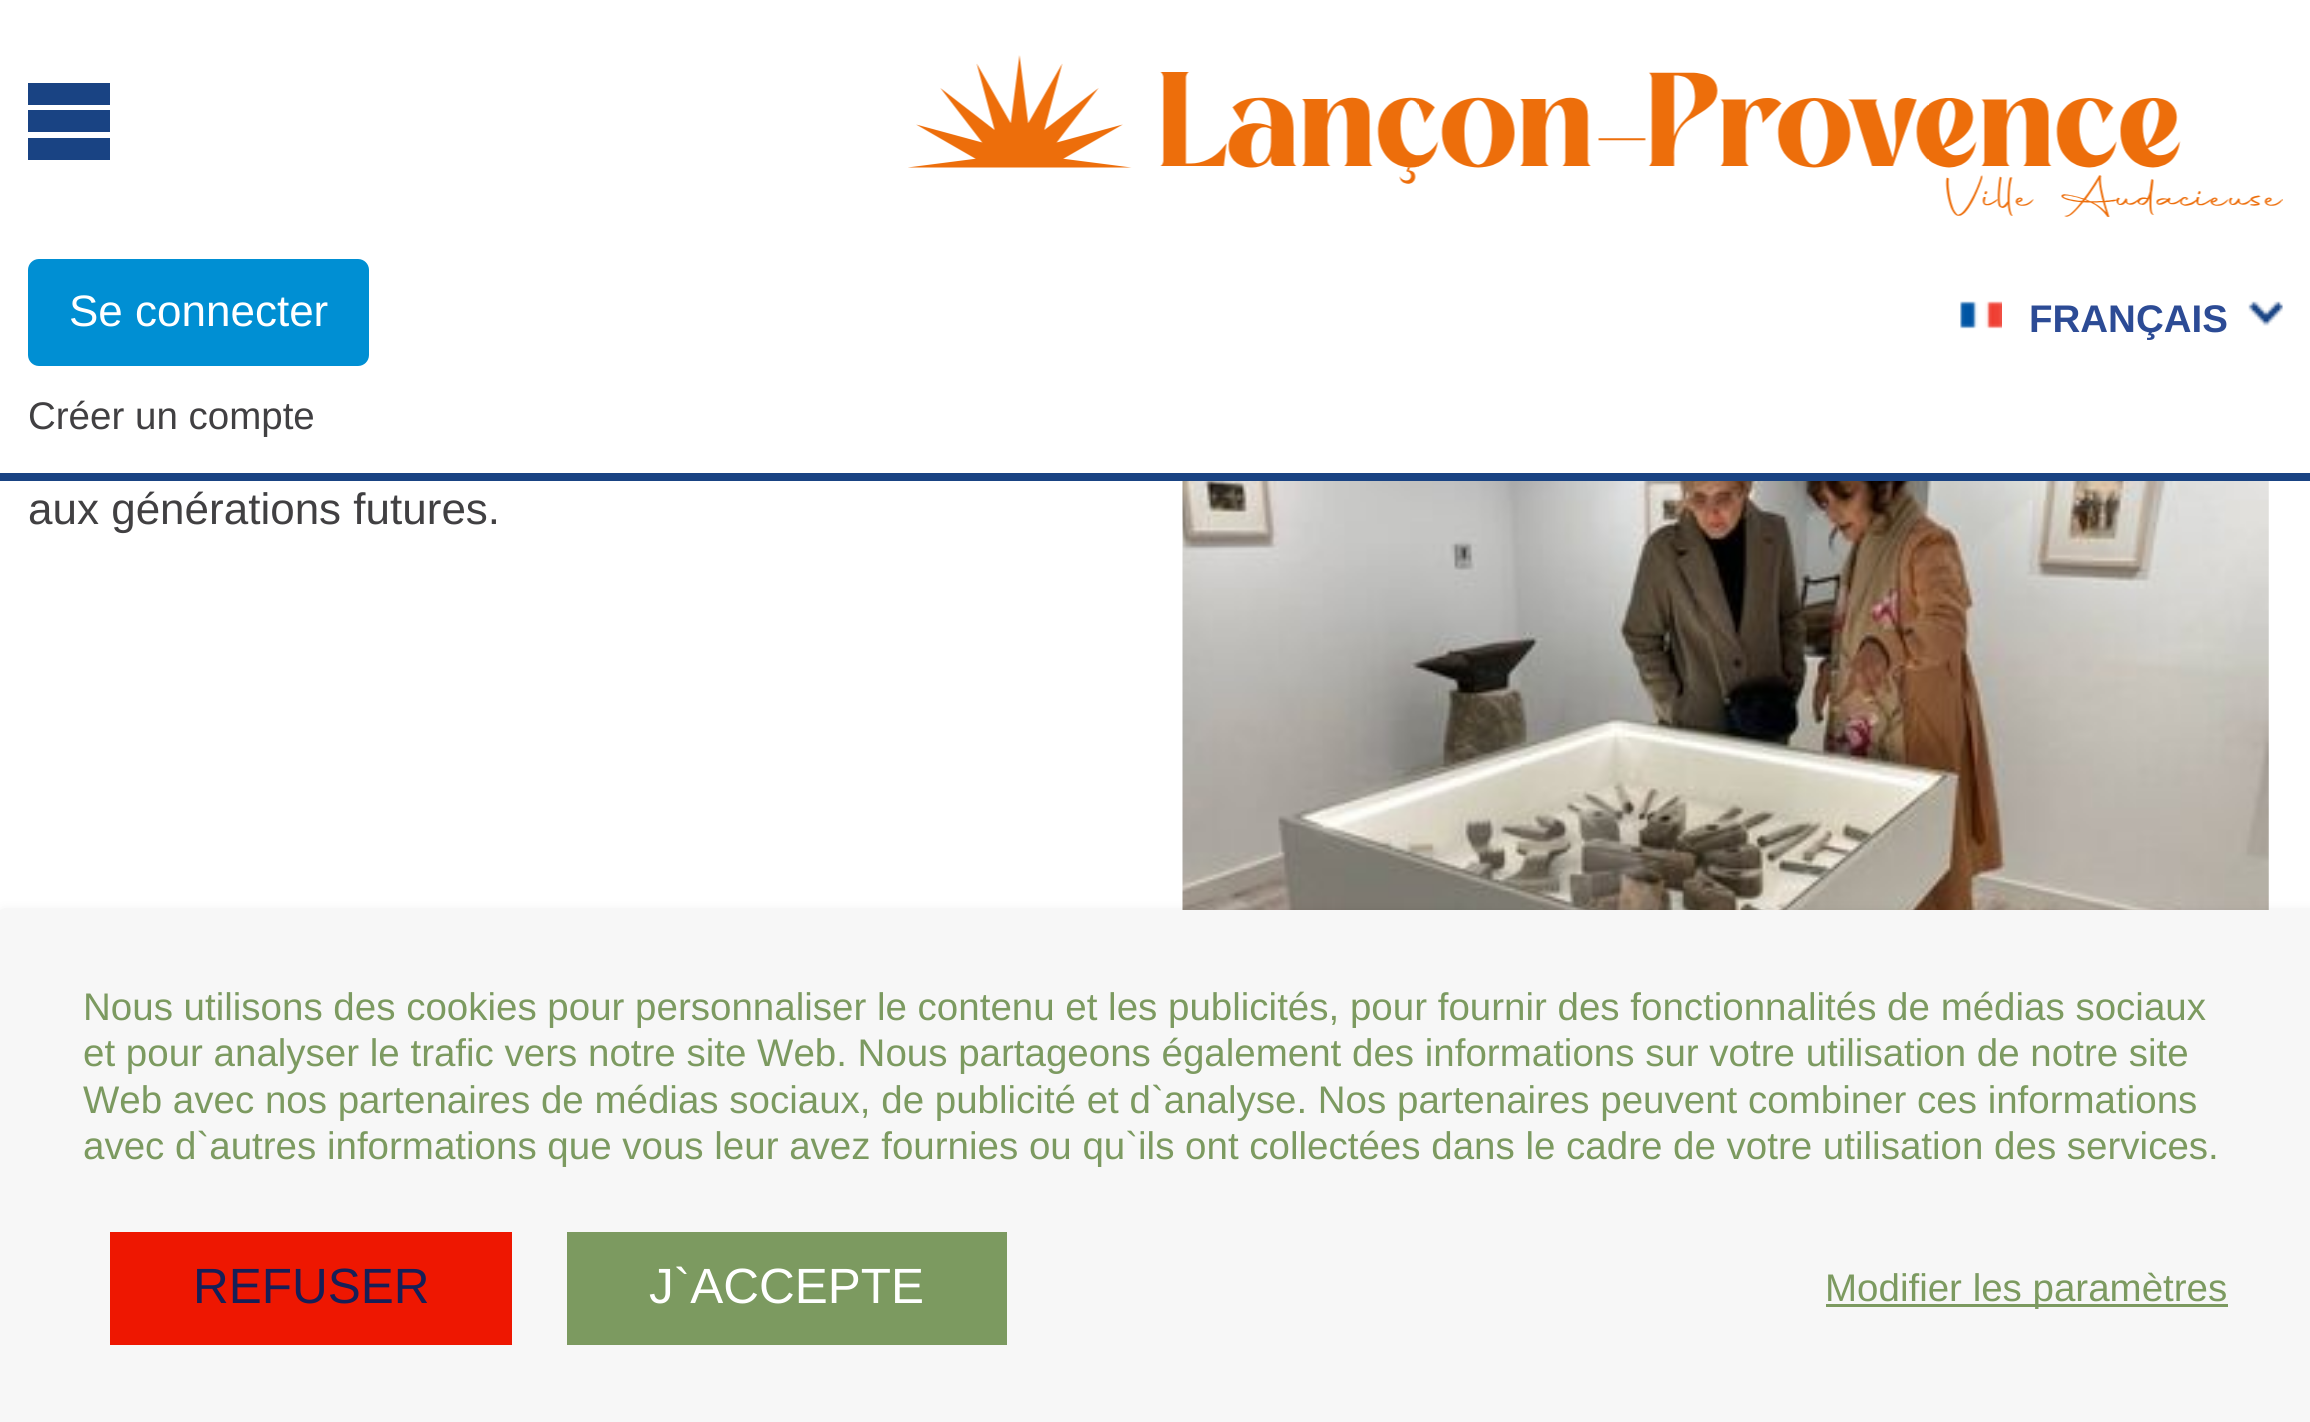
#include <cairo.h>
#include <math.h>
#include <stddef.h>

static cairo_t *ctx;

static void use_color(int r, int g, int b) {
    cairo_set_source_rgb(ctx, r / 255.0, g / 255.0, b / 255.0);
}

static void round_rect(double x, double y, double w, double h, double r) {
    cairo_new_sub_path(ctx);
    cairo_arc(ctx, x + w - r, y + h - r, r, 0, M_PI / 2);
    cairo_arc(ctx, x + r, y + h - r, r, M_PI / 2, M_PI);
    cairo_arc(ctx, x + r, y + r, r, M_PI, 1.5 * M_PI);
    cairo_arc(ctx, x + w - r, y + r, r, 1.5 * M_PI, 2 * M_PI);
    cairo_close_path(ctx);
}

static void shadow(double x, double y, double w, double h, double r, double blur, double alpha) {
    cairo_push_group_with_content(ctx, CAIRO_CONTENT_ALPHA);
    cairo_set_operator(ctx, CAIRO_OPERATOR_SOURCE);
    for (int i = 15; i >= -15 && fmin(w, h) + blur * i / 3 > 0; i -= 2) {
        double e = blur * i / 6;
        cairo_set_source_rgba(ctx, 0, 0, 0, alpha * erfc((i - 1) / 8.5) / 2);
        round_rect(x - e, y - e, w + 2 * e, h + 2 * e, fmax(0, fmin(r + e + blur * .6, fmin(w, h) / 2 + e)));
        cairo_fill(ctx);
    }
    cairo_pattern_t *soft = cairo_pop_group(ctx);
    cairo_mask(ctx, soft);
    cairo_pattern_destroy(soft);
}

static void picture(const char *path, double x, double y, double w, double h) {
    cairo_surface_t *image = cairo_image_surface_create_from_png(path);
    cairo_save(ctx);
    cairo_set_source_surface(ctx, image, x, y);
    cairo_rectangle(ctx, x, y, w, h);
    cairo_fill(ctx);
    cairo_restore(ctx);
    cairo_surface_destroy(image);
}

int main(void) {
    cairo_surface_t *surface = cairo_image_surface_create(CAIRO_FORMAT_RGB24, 2310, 1422);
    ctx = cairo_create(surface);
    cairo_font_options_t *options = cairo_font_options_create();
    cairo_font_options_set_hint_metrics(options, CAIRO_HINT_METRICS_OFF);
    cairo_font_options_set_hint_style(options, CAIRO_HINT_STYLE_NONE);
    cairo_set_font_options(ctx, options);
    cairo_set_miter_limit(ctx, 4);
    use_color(255, 255, 255);
    cairo_paint(ctx);
    use_color(25, 67, 131);
    cairo_rectangle(ctx, 28, 110, 82, 22);
    cairo_fill(ctx);
    cairo_rectangle(ctx, 28, 83, 82, 22);
    cairo_fill(ctx);
    cairo_rectangle(ctx, 28, 138, 82, 22);
    cairo_fill(ctx);
    cairo_rectangle(ctx, 0, 473, 2310, 8);
    cairo_fill(ctx);
    picture("img1.png", 908, 55, 1375, 162);
    use_color(0, 143, 211);
    round_rect(28, 259, 341, 107, 11);
    cairo_fill(ctx);
    cairo_select_font_face(ctx, "Liberation Sans", CAIRO_FONT_SLANT_NORMAL, CAIRO_FONT_WEIGHT_NORMAL);
    cairo_set_font_size(ctx, 44);
    use_color(255, 255, 255);
    cairo_move_to(ctx, 69, 326);
    cairo_show_text(ctx, "Se connecter");
    cairo_set_font_size(ctx, 38.5);
    use_color(65, 64, 66);
    cairo_move_to(ctx, 28, 429);
    cairo_show_text(ctx, "Créer un compte");
    picture("img2.png", 2248, 301, 35, 25);
    picture("img3.png", 1960, 301, 42, 28);
    cairo_select_font_face(ctx, "Liberation Sans", CAIRO_FONT_SLANT_NORMAL, CAIRO_FONT_WEIGHT_BOLD);
    use_color(44, 75, 149);
    cairo_move_to(ctx, 2029, 332);
    cairo_show_text(ctx, "FRANÇAIS");
    cairo_select_font_face(ctx, "Liberation Sans", CAIRO_FONT_SLANT_NORMAL, CAIRO_FONT_WEIGHT_NORMAL);
    cairo_set_font_size(ctx, 44);
    use_color(65, 64, 66);
    cairo_move_to(ctx, 28, 524);
    cairo_show_text(ctx, "aux générations futures.");
    picture("img4.png", 1182, 481, 1087, 429);
    use_color(0, 0, 0);
    shadow(3, 916, 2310, 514, 0, 7, 0.2);
    use_color(247, 247, 247);
    cairo_rectangle(ctx, 0, 910, 2310, 512);
    cairo_fill(ctx);
    cairo_set_font_size(ctx, 38.5);
    use_color(124, 154, 96);
    cairo_move_to(ctx, 83, 1020);
    cairo_show_text(ctx, "Nous utilisons des cookies pour personnaliser le contenu et les publicités, pour fournir des fonctionnalités de médias sociaux");
    cairo_move_to(ctx, 83, 1066);
    cairo_show_text(ctx, "et pour analyser le trafic vers notre site Web. Nous partageons également des informations sur votre utilisation de notre site");
    cairo_move_to(ctx, 83, 1113);
    cairo_show_text(ctx, "Web avec nos partenaires de médias sociaux, de publicité et d`analyse. Nos partenaires peuvent combiner ces informations");
    cairo_move_to(ctx, 83, 1159);
    cairo_show_text(ctx, "avec d`autres informations que vous leur avez fournies ou qu`ils ont collectées dans le cadre de votre utilisation des services.");
    use_color(238, 23, 1);
    cairo_rectangle(ctx, 110, 1232, 402, 113);
    cairo_fill(ctx);
    cairo_set_font_size(ctx, 49.5);
    use_color(22, 31, 87);
    cairo_move_to(ctx, 193, 1303);
    cairo_show_text(ctx, "REFUSER");
    use_color(124, 154, 96);
    cairo_rectangle(ctx, 567, 1232, 440, 113);
    cairo_fill(ctx);
    use_color(255, 255, 255);
    cairo_move_to(ctx, 649, 1303);
    cairo_show_text(ctx, "J`ACCEPTE");
    use_color(124, 154, 96);
    cairo_rectangle(ctx, 1826, 1304, 402, 3);
    cairo_fill(ctx);
    cairo_set_font_size(ctx, 38.5);
    cairo_move_to(ctx, 1825, 1301);
    cairo_show_text(ctx, "Modifier les paramètres");
    cairo_surface_write_to_png(surface, "result.png");
    cairo_font_options_destroy(options);
    cairo_destroy(ctx);
    cairo_surface_destroy(surface);
    return 0;
}
